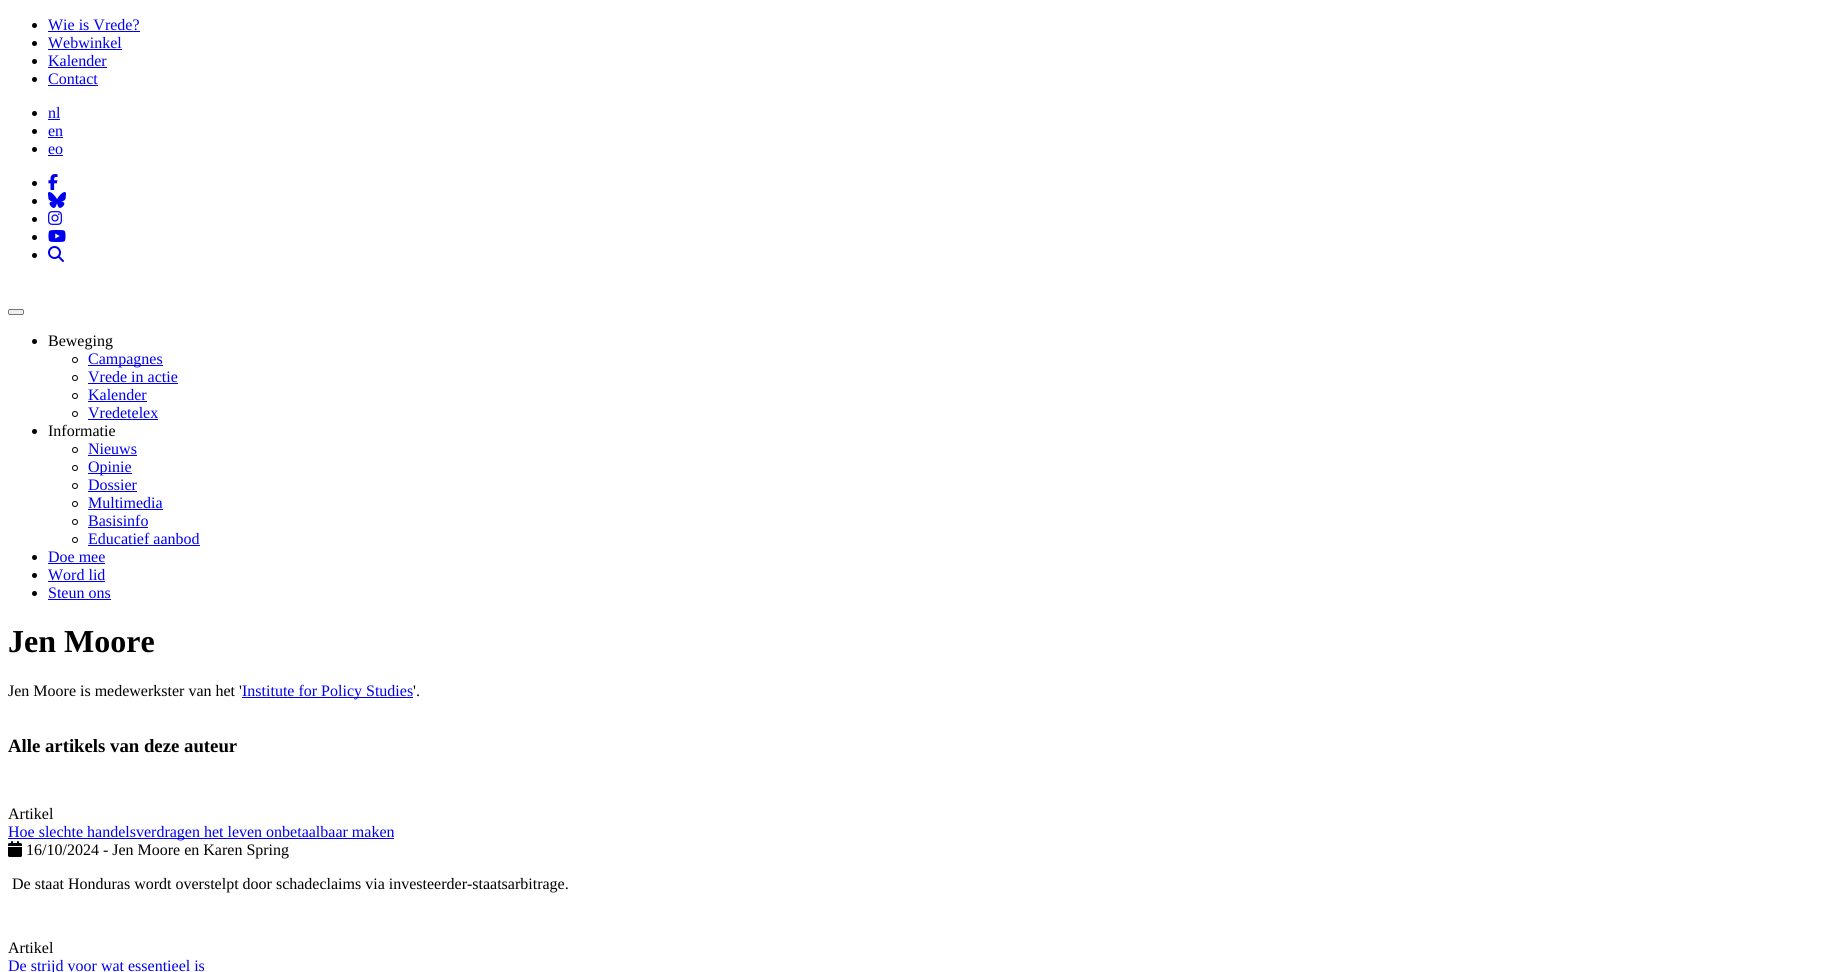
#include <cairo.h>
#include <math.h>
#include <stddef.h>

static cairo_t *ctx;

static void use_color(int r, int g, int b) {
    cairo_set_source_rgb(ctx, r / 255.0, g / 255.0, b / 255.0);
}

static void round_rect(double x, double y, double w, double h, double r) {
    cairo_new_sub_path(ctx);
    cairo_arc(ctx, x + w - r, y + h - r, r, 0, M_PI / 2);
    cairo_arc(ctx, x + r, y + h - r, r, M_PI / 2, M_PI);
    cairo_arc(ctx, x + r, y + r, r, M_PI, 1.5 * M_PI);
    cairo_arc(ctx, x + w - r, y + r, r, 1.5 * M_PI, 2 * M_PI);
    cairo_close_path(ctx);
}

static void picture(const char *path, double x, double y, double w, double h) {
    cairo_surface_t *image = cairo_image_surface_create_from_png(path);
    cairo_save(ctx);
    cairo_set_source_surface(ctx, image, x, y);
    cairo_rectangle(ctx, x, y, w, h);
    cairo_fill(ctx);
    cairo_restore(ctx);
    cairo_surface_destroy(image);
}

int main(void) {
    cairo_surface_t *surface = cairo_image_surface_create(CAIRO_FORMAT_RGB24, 1825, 972);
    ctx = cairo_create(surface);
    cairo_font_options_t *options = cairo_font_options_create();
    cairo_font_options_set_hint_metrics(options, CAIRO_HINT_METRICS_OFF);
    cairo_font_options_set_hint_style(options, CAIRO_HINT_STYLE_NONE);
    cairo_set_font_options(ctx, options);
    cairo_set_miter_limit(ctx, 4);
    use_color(255, 255, 255);
    cairo_paint(ctx);
    use_color(0, 0, 0);
    cairo_arc(ctx, 34.5, 25.5, 2.5, 0, 2 * M_PI);
    cairo_fill(ctx);
    cairo_select_font_face(ctx, "Liberation Serif", CAIRO_FONT_SLANT_NORMAL, CAIRO_FONT_WEIGHT_NORMAL);
    cairo_set_font_size(ctx, 16);
    use_color(0, 0, 238);
    cairo_move_to(ctx, 48, 30);
    cairo_show_text(ctx, "Wie is Vrede?");
    cairo_rectangle(ctx, 48, 31, 92, 1);
    cairo_fill(ctx);
    use_color(0, 0, 0);
    cairo_arc(ctx, 34.5, 43.5, 2.5, 0, 2 * M_PI);
    cairo_fill(ctx);
    use_color(0, 0, 238);
    cairo_move_to(ctx, 48, 48);
    cairo_show_text(ctx, "Webwinkel");
    cairo_rectangle(ctx, 48, 49, 74, 1);
    cairo_fill(ctx);
    use_color(0, 0, 0);
    cairo_arc(ctx, 34.5, 61.5, 2.5, 0, 2 * M_PI);
    cairo_fill(ctx);
    use_color(0, 0, 238);
    cairo_move_to(ctx, 48, 66);
    cairo_show_text(ctx, "Kalender");
    cairo_rectangle(ctx, 48, 67, 59, 1);
    cairo_fill(ctx);
    use_color(0, 0, 0);
    cairo_arc(ctx, 34.5, 79.5, 2.5, 0, 2 * M_PI);
    cairo_fill(ctx);
    use_color(0, 0, 238);
    cairo_move_to(ctx, 48, 84);
    cairo_show_text(ctx, "Contact");
    cairo_rectangle(ctx, 48, 85, 50, 1);
    cairo_fill(ctx);
    use_color(0, 0, 0);
    cairo_arc(ctx, 34.5, 113.5, 2.5, 0, 2 * M_PI);
    cairo_fill(ctx);
    use_color(0, 0, 238);
    cairo_move_to(ctx, 48, 118);
    cairo_show_text(ctx, "nl");
    cairo_rectangle(ctx, 48, 119, 12, 1);
    cairo_fill(ctx);
    use_color(0, 0, 0);
    cairo_arc(ctx, 34.5, 131.5, 2.5, 0, 2 * M_PI);
    cairo_fill(ctx);
    use_color(0, 0, 238);
    cairo_move_to(ctx, 48, 136);
    cairo_show_text(ctx, "en");
    cairo_rectangle(ctx, 48, 137, 15, 1);
    cairo_fill(ctx);
    use_color(0, 0, 0);
    cairo_arc(ctx, 34.5, 149.5, 2.5, 0, 2 * M_PI);
    cairo_fill(ctx);
    use_color(0, 0, 238);
    cairo_move_to(ctx, 48, 154);
    cairo_show_text(ctx, "eo");
    cairo_rectangle(ctx, 48, 155, 15, 1);
    cairo_fill(ctx);
    use_color(0, 0, 0);
    cairo_arc(ctx, 34.5, 183.5, 2.5, 0, 2 * M_PI);
    cairo_fill(ctx);
    picture("img1.png", 48, 174, 10, 16);
    cairo_arc(ctx, 34.5, 201.5, 2.5, 0, 2 * M_PI);
    cairo_fill(ctx);
    picture("img2.png", 48, 192, 18, 16);
    cairo_arc(ctx, 34.5, 219.5, 2.5, 0, 2 * M_PI);
    cairo_fill(ctx);
    picture("img3.png", 48, 211, 14, 14);
    cairo_arc(ctx, 34.5, 237.5, 2.5, 0, 2 * M_PI);
    cairo_fill(ctx);
    picture("img4.png", 48, 230, 18, 12);
    cairo_arc(ctx, 34.5, 255.5, 2.5, 0, 2 * M_PI);
    cairo_fill(ctx);
    picture("img5.png", 48, 246, 16, 16);
    use_color(239, 239, 239);
    round_rect(8.5, 309.5, 15, 5, 1.5);
    cairo_fill_preserve(ctx);
    use_color(118, 118, 118);
    cairo_set_line_width(ctx, 1);
    cairo_stroke(ctx);
    use_color(0, 0, 0);
    cairo_arc(ctx, 34.5, 341.5, 2.5, 0, 2 * M_PI);
    cairo_fill(ctx);
    cairo_move_to(ctx, 48, 346);
    cairo_show_text(ctx, "Beweging");
    cairo_new_path(ctx);
    cairo_arc(ctx, 75, 360, 2.5, 0, 2 * M_PI);
    cairo_stroke(ctx);
    use_color(0, 0, 238);
    cairo_rectangle(ctx, 88, 365, 75, 1);
    cairo_fill(ctx);
    cairo_move_to(ctx, 88, 364);
    cairo_show_text(ctx, "Campagnes");
    cairo_new_path(ctx);
    cairo_arc(ctx, 75, 378, 2.5, 0, 2 * M_PI);
    use_color(0, 0, 0);
    cairo_stroke(ctx);
    use_color(0, 0, 238);
    cairo_move_to(ctx, 88, 382);
    cairo_show_text(ctx, "Vrede in actie");
    cairo_rectangle(ctx, 88, 383, 90, 1);
    cairo_fill(ctx);
    cairo_arc(ctx, 75, 396, 2.5, 0, 2 * M_PI);
    use_color(0, 0, 0);
    cairo_stroke(ctx);
    use_color(0, 0, 238);
    cairo_move_to(ctx, 88, 400);
    cairo_show_text(ctx, "Kalender");
    cairo_rectangle(ctx, 88, 401, 59, 1);
    cairo_fill(ctx);
    cairo_arc(ctx, 75, 414, 2.5, 0, 2 * M_PI);
    use_color(0, 0, 0);
    cairo_stroke(ctx);
    use_color(0, 0, 238);
    cairo_move_to(ctx, 88, 418);
    cairo_show_text(ctx, "Vredetelex");
    cairo_rectangle(ctx, 88, 419, 70, 1);
    cairo_fill(ctx);
    use_color(0, 0, 0);
    cairo_arc(ctx, 34.5, 431.5, 2.5, 0, 2 * M_PI);
    cairo_fill(ctx);
    cairo_move_to(ctx, 48, 436);
    cairo_show_text(ctx, "Informatie");
    cairo_new_path(ctx);
    cairo_arc(ctx, 75, 450, 2.5, 0, 2 * M_PI);
    cairo_stroke(ctx);
    use_color(0, 0, 238);
    cairo_move_to(ctx, 88, 454);
    cairo_show_text(ctx, "Nieuws");
    cairo_rectangle(ctx, 88, 455, 49, 1);
    cairo_fill(ctx);
    cairo_arc(ctx, 75, 468, 2.5, 0, 2 * M_PI);
    use_color(0, 0, 0);
    cairo_stroke(ctx);
    use_color(0, 0, 238);
    cairo_rectangle(ctx, 88, 473, 44, 1);
    cairo_fill(ctx);
    cairo_move_to(ctx, 88, 472);
    cairo_show_text(ctx, "Opinie");
    cairo_new_path(ctx);
    cairo_arc(ctx, 75, 486, 2.5, 0, 2 * M_PI);
    use_color(0, 0, 0);
    cairo_stroke(ctx);
    use_color(0, 0, 238);
    cairo_move_to(ctx, 88, 490);
    cairo_show_text(ctx, "Dossier");
    cairo_rectangle(ctx, 88, 491, 49, 1);
    cairo_fill(ctx);
    cairo_arc(ctx, 75, 504, 2.5, 0, 2 * M_PI);
    use_color(0, 0, 0);
    cairo_stroke(ctx);
    use_color(0, 0, 238);
    cairo_move_to(ctx, 88, 508);
    cairo_show_text(ctx, "Multimedia");
    cairo_rectangle(ctx, 88, 509, 75, 1);
    cairo_fill(ctx);
    cairo_arc(ctx, 75, 522, 2.5, 0, 2 * M_PI);
    use_color(0, 0, 0);
    cairo_stroke(ctx);
    use_color(0, 0, 238);
    cairo_move_to(ctx, 88, 526);
    cairo_show_text(ctx, "Basisinfo");
    cairo_rectangle(ctx, 88, 527, 60, 1);
    cairo_fill(ctx);
    cairo_arc(ctx, 75, 540, 2.5, 0, 2 * M_PI);
    use_color(0, 0, 0);
    cairo_stroke(ctx);
    use_color(0, 0, 238);
    cairo_move_to(ctx, 88, 544);
    cairo_show_text(ctx, "Educatief aanbod");
    cairo_rectangle(ctx, 88, 545, 112, 1);
    cairo_fill(ctx);
    use_color(0, 0, 0);
    cairo_arc(ctx, 34.5, 557.5, 2.5, 0, 2 * M_PI);
    cairo_fill(ctx);
    use_color(0, 0, 238);
    cairo_move_to(ctx, 48, 562);
    cairo_show_text(ctx, "Doe mee");
    cairo_rectangle(ctx, 48, 563, 57, 1);
    cairo_fill(ctx);
    use_color(0, 0, 0);
    cairo_arc(ctx, 34.5, 575.5, 2.5, 0, 2 * M_PI);
    cairo_fill(ctx);
    use_color(0, 0, 238);
    cairo_move_to(ctx, 48, 580);
    cairo_show_text(ctx, "Word lid");
    cairo_rectangle(ctx, 48, 581, 57, 1);
    cairo_fill(ctx);
    use_color(0, 0, 0);
    cairo_arc(ctx, 34.5, 593.5, 2.5, 0, 2 * M_PI);
    cairo_fill(ctx);
    use_color(0, 0, 238);
    cairo_move_to(ctx, 48, 598);
    cairo_show_text(ctx, "Steun ons");
    cairo_rectangle(ctx, 48, 599, 63, 1);
    cairo_fill(ctx);
    cairo_select_font_face(ctx, "Liberation Serif", CAIRO_FONT_SLANT_NORMAL, CAIRO_FONT_WEIGHT_BOLD);
    cairo_set_font_size(ctx, 32);
    use_color(0, 0, 0);
    cairo_move_to(ctx, 8, 652);
    cairo_show_text(ctx, "Jen Moore");
    cairo_select_font_face(ctx, "Liberation Serif", CAIRO_FONT_SLANT_NORMAL, CAIRO_FONT_WEIGHT_NORMAL);
    cairo_set_font_size(ctx, 16);
    cairo_move_to(ctx, 8, 696);
    cairo_show_text(ctx, "Jen Moore is medewerkster van het '");
    use_color(0, 0, 238);
    cairo_rectangle(ctx, 242, 697, 171, 1);
    cairo_fill(ctx);
    cairo_move_to(ctx, 242, 696);
    cairo_show_text(ctx, "Institute for Policy Studies");
    use_color(0, 0, 0);
    cairo_move_to(ctx, 413, 696);
    cairo_show_text(ctx, "'.");
    cairo_select_font_face(ctx, "Liberation Serif", CAIRO_FONT_SLANT_NORMAL, CAIRO_FONT_WEIGHT_BOLD);
    cairo_set_font_size(ctx, 18.75);
    cairo_move_to(ctx, 8, 752);
    cairo_show_text(ctx, "Alle artikels van deze auteur");
    cairo_select_font_face(ctx, "Liberation Serif", CAIRO_FONT_SLANT_NORMAL, CAIRO_FONT_WEIGHT_NORMAL);
    cairo_set_font_size(ctx, 16);
    cairo_move_to(ctx, 8, 819);
    cairo_show_text(ctx, "Artikel");
    use_color(0, 0, 238);
    cairo_rectangle(ctx, 8, 838, 386, 1);
    cairo_fill(ctx);
    cairo_move_to(ctx, 8, 837);
    cairo_show_text(ctx, "Hoe slechte handelsverdragen het leven onbetaalbaar maken");
    picture("img6.png", 8, 841, 14, 16);
    use_color(0, 0, 0);
    cairo_move_to(ctx, 26, 855);
    cairo_show_text(ctx, "16/10/2024 - Jen Moore en Karen Spring");
    cairo_move_to(ctx, 12, 889);
    cairo_show_text(ctx, "De staat Honduras wordt overstelpt door schadeclaims via investeerder-staatsarbitrage.");
    cairo_move_to(ctx, 8, 953);
    cairo_show_text(ctx, "Artikel");
    use_color(0, 0, 238);
    cairo_move_to(ctx, 8, 971);
    cairo_show_text(ctx, "De strijd voor wat essentieel is");
    cairo_surface_write_to_png(surface, "result.png");
    cairo_font_options_destroy(options);
    cairo_destroy(ctx);
    cairo_surface_destroy(surface);
    return 0;
}
